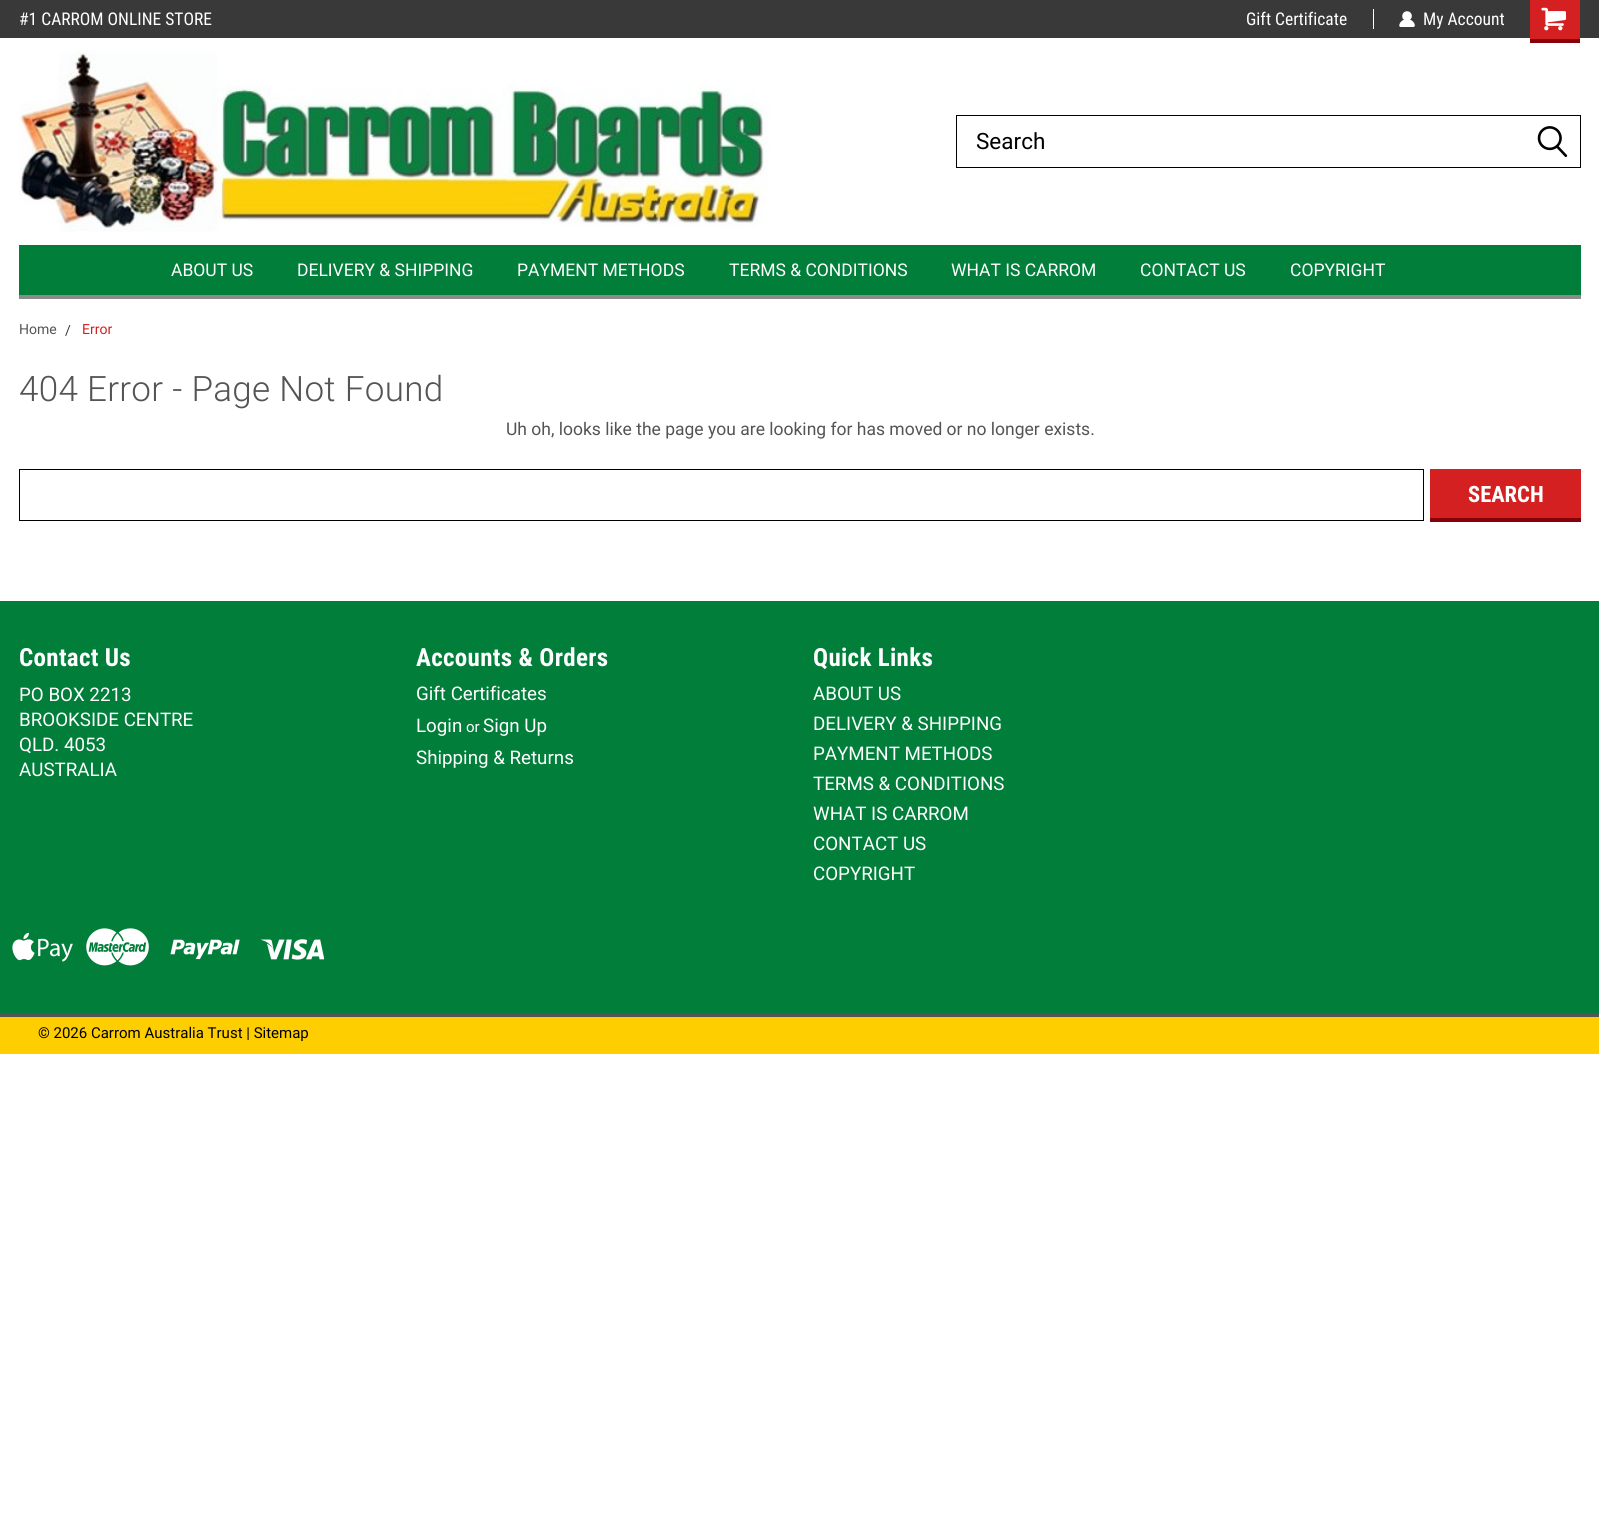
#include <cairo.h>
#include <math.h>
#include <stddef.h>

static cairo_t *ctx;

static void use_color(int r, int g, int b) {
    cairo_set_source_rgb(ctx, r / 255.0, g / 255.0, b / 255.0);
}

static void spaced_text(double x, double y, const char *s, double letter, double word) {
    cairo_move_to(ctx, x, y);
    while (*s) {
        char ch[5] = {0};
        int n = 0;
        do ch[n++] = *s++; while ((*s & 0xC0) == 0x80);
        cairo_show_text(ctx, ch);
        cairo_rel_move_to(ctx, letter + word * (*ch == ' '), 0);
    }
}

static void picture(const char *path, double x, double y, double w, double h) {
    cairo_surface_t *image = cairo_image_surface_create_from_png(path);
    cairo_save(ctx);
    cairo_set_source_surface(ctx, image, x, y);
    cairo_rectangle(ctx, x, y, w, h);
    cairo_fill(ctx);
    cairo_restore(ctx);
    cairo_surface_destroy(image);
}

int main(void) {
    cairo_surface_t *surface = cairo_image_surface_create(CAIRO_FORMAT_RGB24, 1599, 1539);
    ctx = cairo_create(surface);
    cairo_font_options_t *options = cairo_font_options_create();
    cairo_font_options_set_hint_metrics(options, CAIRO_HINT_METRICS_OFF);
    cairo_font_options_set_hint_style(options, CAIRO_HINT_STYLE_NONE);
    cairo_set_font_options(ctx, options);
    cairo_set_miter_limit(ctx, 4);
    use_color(255, 255, 255);
    cairo_paint(ctx);
    use_color(57, 57, 57);
    cairo_rectangle(ctx, 0, 0, 1599, 38);
    cairo_fill(ctx);
    cairo_select_font_face(ctx, "Roboto Condensed", CAIRO_FONT_SLANT_NORMAL, CAIRO_FONT_WEIGHT_NORMAL);
    cairo_set_font_size(ctx, 17.5);
    use_color(255, 255, 255);
    cairo_move_to(ctx, 19, 25);
    cairo_show_text(ctx, "#1 CARROM ONLINE STORE");
    cairo_rectangle(ctx, 1373, 9, 1, 20);
    cairo_fill(ctx);
    cairo_move_to(ctx, 1246, 25);
    cairo_show_text(ctx, "Gift Certificate");
    picture("img1.png", 1399, 11, 16, 16);
    cairo_move_to(ctx, 1423, 25);
    cairo_show_text(ctx, "My Account");
    use_color(212, 32, 32);
    cairo_rectangle(ctx, 1530, 0, 50, 39);
    cairo_fill(ctx);
    use_color(134, 1, 9);
    cairo_rectangle(ctx, 1530, 39, 50, 4);
    cairo_fill(ctx);
    picture("img2.png", 1541, 7, 25, 24);
    picture("img3.png", 19, 50, 750, 182);
    cairo_rectangle(ctx, 956.5, 115.5, 624, 52);
    use_color(0, 0, 0);
    cairo_set_line_width(ctx, 1);
    cairo_stroke(ctx);
    cairo_select_font_face(ctx, "Roboto", CAIRO_FONT_SLANT_NORMAL, CAIRO_FONT_WEIGHT_NORMAL);
    cairo_set_font_size(ctx, 22.5);
    cairo_move_to(ctx, 976, 149);
    cairo_show_text(ctx, "Search");
    picture("img4.png", 1537, 126, 31, 32);
    use_color(0, 126, 58);
    cairo_rectangle(ctx, 19, 245, 1562, 50);
    cairo_fill(ctx);
    use_color(139, 139, 139);
    cairo_rectangle(ctx, 19, 295, 1562, 4);
    cairo_fill(ctx);
    cairo_set_font_size(ctx, 17.5);
    use_color(255, 255, 255);
    cairo_move_to(ctx, 171, 276);
    cairo_show_text(ctx, "ABOUT US");
    cairo_move_to(ctx, 297, 276);
    cairo_show_text(ctx, "DELIVERY & SHIPPING");
    cairo_move_to(ctx, 517, 276);
    cairo_show_text(ctx, "PAYMENT METHODS");
    cairo_move_to(ctx, 729, 276);
    cairo_show_text(ctx, "TERMS & CONDITIONS");
    cairo_move_to(ctx, 951, 276);
    cairo_show_text(ctx, "WHAT IS CARROM");
    cairo_move_to(ctx, 1140, 276);
    cairo_show_text(ctx, "CONTACT US");
    cairo_move_to(ctx, 1290, 276);
    cairo_show_text(ctx, "COPYRIGHT");
    cairo_set_font_size(ctx, 14);
    use_color(84, 84, 84);
    cairo_move_to(ctx, 19, 334);
    cairo_show_text(ctx, "Home");
    use_color(57, 57, 57);
    cairo_move_to(ctx, 65, 335);
    cairo_show_text(ctx, "/");
    use_color(212, 32, 32);
    cairo_move_to(ctx, 82, 334);
    cairo_show_text(ctx, "Error");
    cairo_select_font_face(ctx, "Roboto Light", CAIRO_FONT_SLANT_NORMAL, CAIRO_FONT_WEIGHT_NORMAL);
    cairo_set_font_size(ctx, 35);
    use_color(84, 84, 84);
    spaced_text(19, 401, "404 Error - Page Not Found", 0.3, 0);
    cairo_select_font_face(ctx, "Roboto", CAIRO_FONT_SLANT_NORMAL, CAIRO_FONT_WEIGHT_NORMAL);
    cairo_set_font_size(ctx, 17.5);
    cairo_move_to(ctx, 506, 435);
    cairo_show_text(ctx, "Uh oh, looks like the page you are looking for has moved or no longer exists.");
    cairo_rectangle(ctx, 19.5, 469.5, 1404, 51);
    use_color(0, 0, 0);
    cairo_stroke(ctx);
    use_color(212, 32, 32);
    cairo_rectangle(ctx, 1430, 469, 151, 49);
    cairo_fill(ctx);
    use_color(134, 1, 9);
    cairo_rectangle(ctx, 1430, 518, 151, 4);
    cairo_fill(ctx);
    cairo_select_font_face(ctx, "Roboto Condensed", CAIRO_FONT_SLANT_NORMAL, CAIRO_FONT_WEIGHT_BOLD);
    cairo_set_font_size(ctx, 22.5);
    use_color(255, 255, 255);
    cairo_move_to(ctx, 1468, 502);
    cairo_show_text(ctx, "SEARCH");
    use_color(0, 126, 58);
    cairo_rectangle(ctx, 0, 601, 1599, 412);
    cairo_fill(ctx);
    cairo_set_font_size(ctx, 25);
    use_color(255, 255, 255);
    spaced_text(19, 666, "Contact Us", 0.3, 0);
    cairo_select_font_face(ctx, "Roboto", CAIRO_FONT_SLANT_NORMAL, CAIRO_FONT_WEIGHT_NORMAL);
    cairo_set_font_size(ctx, 18.75);
    cairo_move_to(ctx, 19, 701);
    cairo_show_text(ctx, "PO BOX 2213");
    cairo_move_to(ctx, 19, 726);
    cairo_show_text(ctx, "BROOKSIDE CENTRE");
    cairo_move_to(ctx, 19, 751);
    cairo_show_text(ctx, "QLD. 4053");
    cairo_move_to(ctx, 19, 776);
    cairo_show_text(ctx, "AUSTRALIA");
    cairo_select_font_face(ctx, "Roboto Condensed", CAIRO_FONT_SLANT_NORMAL, CAIRO_FONT_WEIGHT_BOLD);
    cairo_set_font_size(ctx, 25);
    spaced_text(416, 666, "Accounts & Orders", 0.3, 0);
    cairo_select_font_face(ctx, "Roboto", CAIRO_FONT_SLANT_NORMAL, CAIRO_FONT_WEIGHT_NORMAL);
    cairo_set_font_size(ctx, 18.75);
    cairo_move_to(ctx, 416, 700);
    cairo_show_text(ctx, "Gift Certificates");
    cairo_move_to(ctx, 416, 732);
    cairo_show_text(ctx, "Login");
    cairo_set_font_size(ctx, 15);
    cairo_move_to(ctx, 466, 732);
    cairo_show_text(ctx, "or");
    cairo_set_font_size(ctx, 18.75);
    cairo_move_to(ctx, 483, 732);
    cairo_show_text(ctx, "Sign Up");
    cairo_move_to(ctx, 416, 764);
    cairo_show_text(ctx, "Shipping & Returns");
    cairo_select_font_face(ctx, "Roboto Condensed", CAIRO_FONT_SLANT_NORMAL, CAIRO_FONT_WEIGHT_BOLD);
    cairo_set_font_size(ctx, 25);
    spaced_text(813, 666, "Quick Links", 0.3, 0);
    cairo_select_font_face(ctx, "Roboto", CAIRO_FONT_SLANT_NORMAL, CAIRO_FONT_WEIGHT_NORMAL);
    cairo_set_font_size(ctx, 18.75);
    cairo_move_to(ctx, 813, 700);
    cairo_show_text(ctx, "ABOUT US");
    cairo_move_to(ctx, 813, 730);
    cairo_show_text(ctx, "DELIVERY & SHIPPING");
    cairo_move_to(ctx, 813, 760);
    cairo_show_text(ctx, "PAYMENT METHODS");
    cairo_move_to(ctx, 813, 790);
    cairo_show_text(ctx, "TERMS & CONDITIONS");
    cairo_move_to(ctx, 813, 820);
    cairo_show_text(ctx, "WHAT IS CARROM");
    cairo_move_to(ctx, 813, 850);
    cairo_show_text(ctx, "CONTACT US");
    cairo_move_to(ctx, 813, 880);
    cairo_show_text(ctx, "COPYRIGHT");
    picture("img5.png", 12, 932, 61, 30);
    picture("img6.png", 86, 928, 63, 38);
    picture("img7.png", 170, 939, 70, 21);
    picture("img8.png", 261, 939, 63, 21);
    use_color(255, 206, 0);
    cairo_rectangle(ctx, 0, 1017, 1599, 37);
    cairo_fill(ctx);
    use_color(84, 84, 84);
    cairo_rectangle(ctx, 0, 1013, 1599, 4);
    cairo_fill(ctx);
    cairo_set_font_size(ctx, 15);
    use_color(0, 0, 0);
    cairo_move_to(ctx, 38, 1038);
    cairo_show_text(ctx, "© 2026 Carrom Australia Trust | Sitemap");
    cairo_surface_write_to_png(surface, "result.png");
    cairo_font_options_destroy(options);
    cairo_destroy(ctx);
    cairo_surface_destroy(surface);
    return 0;
}
